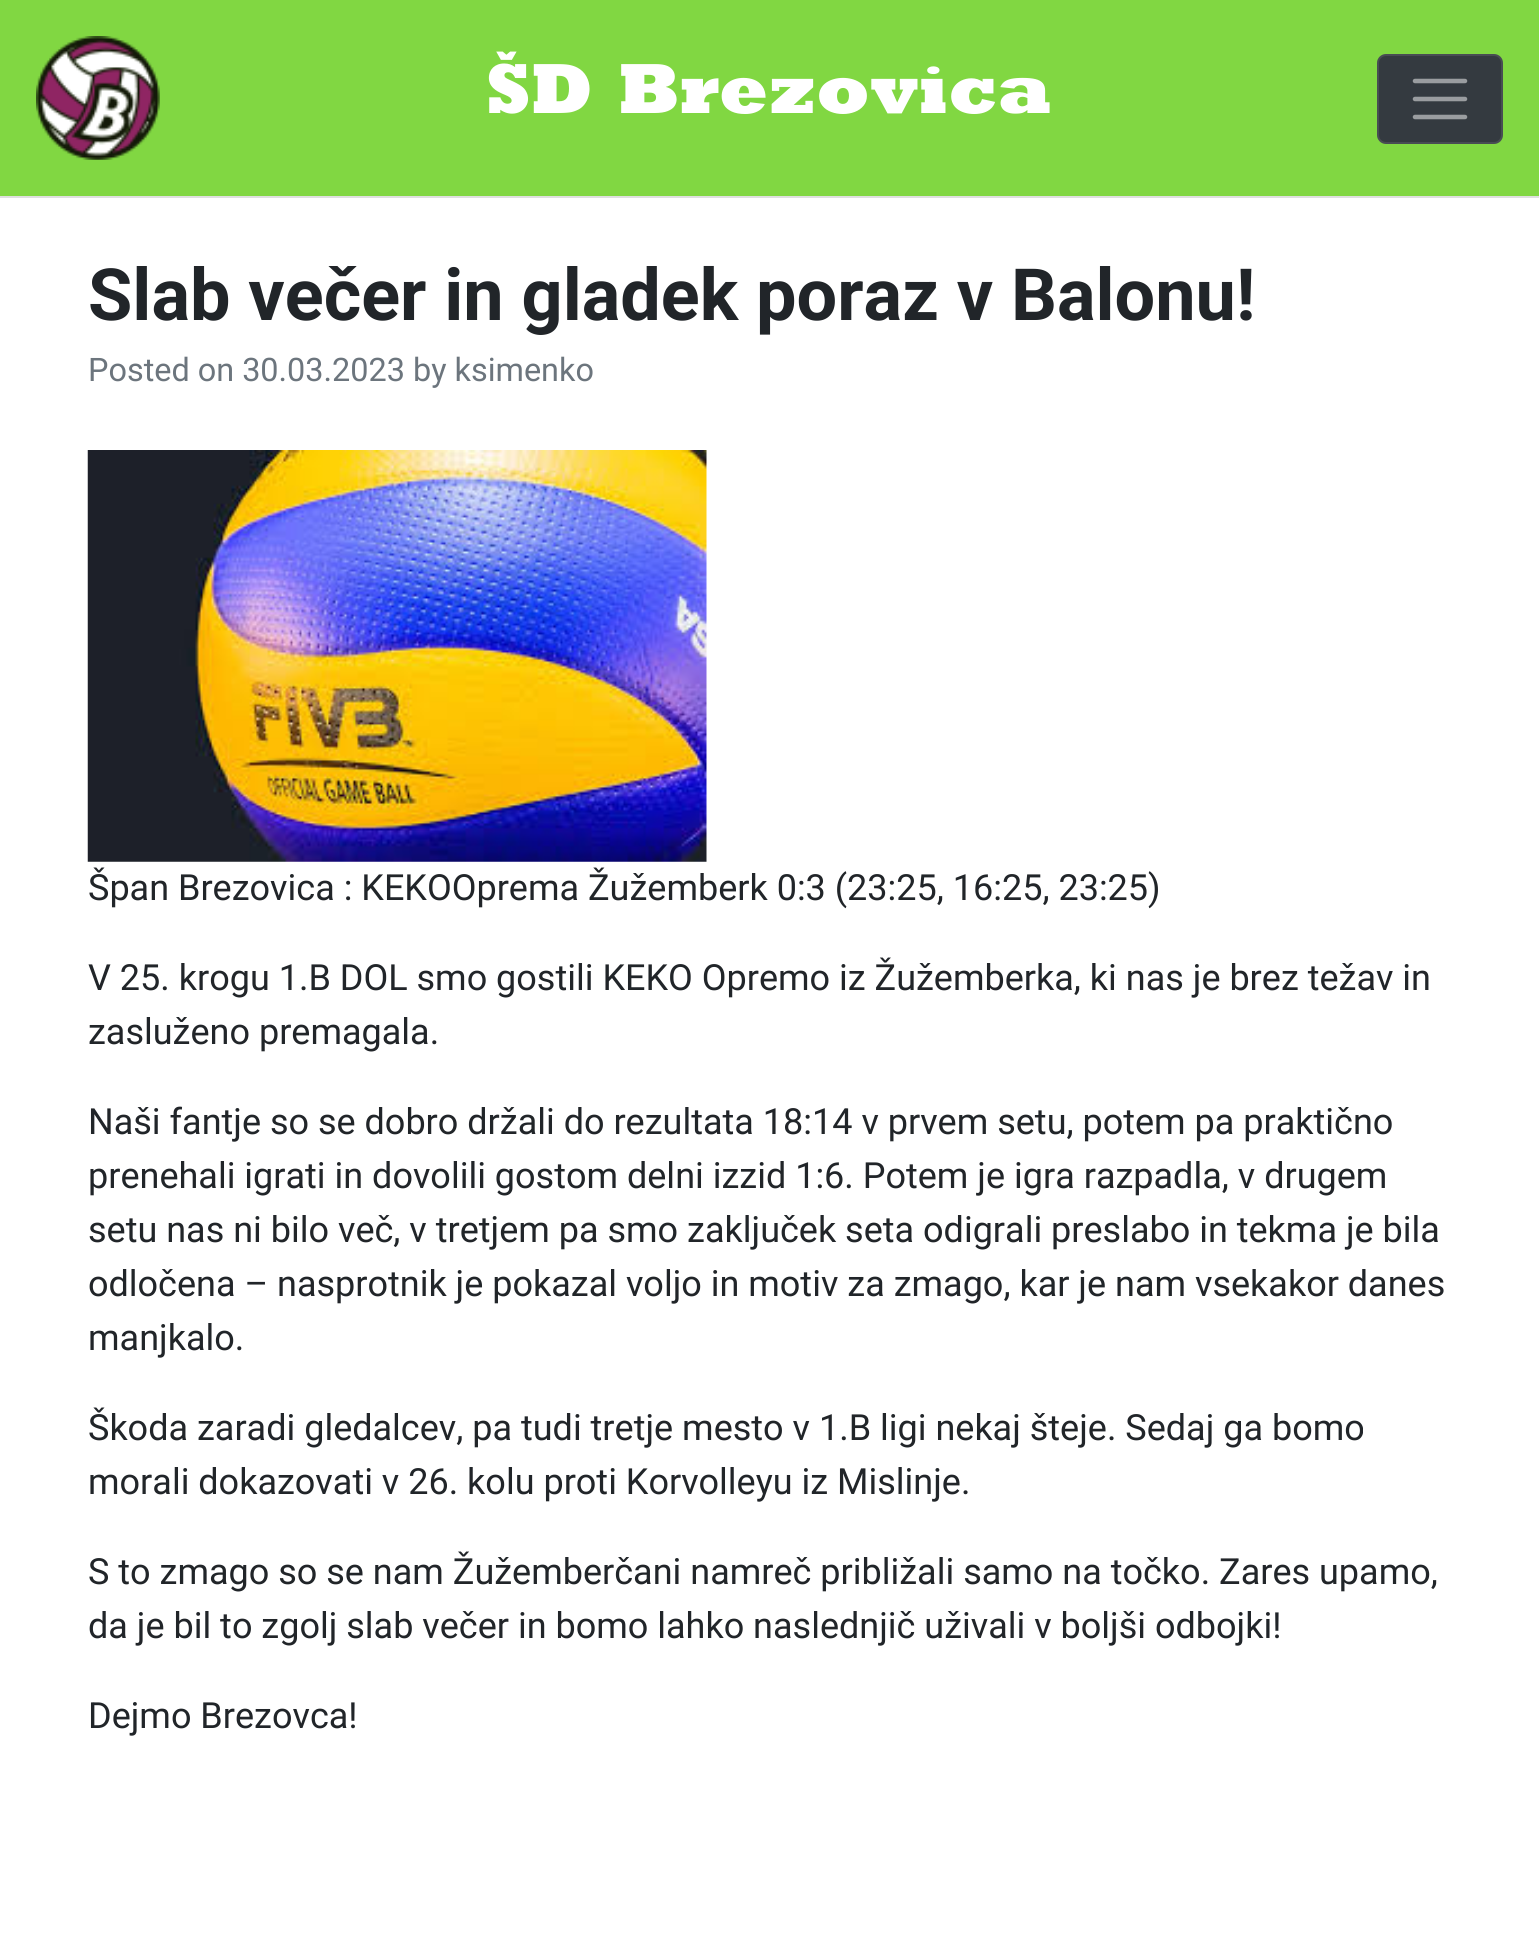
#include <cairo.h>
#include <math.h>
#include <stddef.h>

static cairo_t *ctx;

static void use_color(int r, int g, int b) {
    cairo_set_source_rgb(ctx, r / 255.0, g / 255.0, b / 255.0);
}

static void round_rect(double x, double y, double w, double h, double r) {
    cairo_new_sub_path(ctx);
    cairo_arc(ctx, x + w - r, y + h - r, r, 0, M_PI / 2);
    cairo_arc(ctx, x + r, y + h - r, r, M_PI / 2, M_PI);
    cairo_arc(ctx, x + r, y + r, r, M_PI, 1.5 * M_PI);
    cairo_arc(ctx, x + w - r, y + r, r, 1.5 * M_PI, 2 * M_PI);
    cairo_close_path(ctx);
}

static void picture(const char *path, double x, double y, double w, double h) {
    cairo_surface_t *image = cairo_image_surface_create_from_png(path);
    cairo_save(ctx);
    cairo_set_source_surface(ctx, image, x, y);
    cairo_rectangle(ctx, x, y, w, h);
    cairo_fill(ctx);
    cairo_restore(ctx);
    cairo_surface_destroy(image);
}

int main(void) {
    cairo_surface_t *surface = cairo_image_surface_create(CAIRO_FORMAT_RGB24, 1539, 1949);
    ctx = cairo_create(surface);
    cairo_font_options_t *options = cairo_font_options_create();
    cairo_font_options_set_hint_metrics(options, CAIRO_HINT_METRICS_OFF);
    cairo_font_options_set_hint_style(options, CAIRO_HINT_STYLE_NONE);
    cairo_set_font_options(ctx, options);
    cairo_set_miter_limit(ctx, 4);
    use_color(255, 255, 255);
    cairo_paint(ctx);
    use_color(223, 223, 223);
    cairo_rectangle(ctx, 0, 196, 1539, 2);
    cairo_fill(ctx);
    use_color(129, 215, 66);
    cairo_rectangle(ctx, 0, 0, 1539, 196);
    cairo_fill(ctx);
    picture("img1.png", 36, 36, 124, 124);
    cairo_select_font_face(ctx, "Rockwell ExtraBold", CAIRO_FONT_SLANT_NORMAL, CAIRO_FONT_WEIGHT_NORMAL);
    cairo_set_font_size(ctx, 72);
    use_color(255, 255, 255);
    cairo_move_to(ctx, 486, 113);
    cairo_show_text(ctx, "ŠD Brezovica");
    use_color(52, 58, 64);
    round_rect(1377, 54, 126, 90, 9);
    cairo_fill(ctx);
    round_rect(1378, 55, 124, 88, 8);
    cairo_set_source_rgba(ctx, 1, 1, 1, 0.1);
    cairo_stroke(ctx);
    cairo_new_path(ctx);
    cairo_move_to(ctx, 1415, 81);
    cairo_line_to(ctx, 1465, 81);
    cairo_move_to(ctx, 1415, 99);
    cairo_line_to(ctx, 1465, 99);
    cairo_move_to(ctx, 1415, 117);
    cairo_line_to(ctx, 1465, 117);
    use_color(154, 157, 160);
    cairo_set_line_width(ctx, 4.5);
    cairo_set_line_cap(ctx, CAIRO_LINE_CAP_ROUND);
    cairo_stroke(ctx);
    cairo_select_font_face(ctx, "Roboto", CAIRO_FONT_SLANT_NORMAL, CAIRO_FONT_WEIGHT_BOLD);
    use_color(33, 37, 41);
    cairo_move_to(ctx, 88, 320);
    cairo_show_text(ctx, "Slab večer in gladek poraz v Balonu!");
    cairo_select_font_face(ctx, "Roboto", CAIRO_FONT_SLANT_NORMAL, CAIRO_FONT_WEIGHT_NORMAL);
    cairo_set_font_size(ctx, 32.4);
    use_color(108, 117, 125);
    cairo_move_to(ctx, 88, 381);
    cairo_show_text(ctx, "Posted on 30.03.2023 by ksimenko");
    picture("img2.png", 87, 450, 620, 412);
    cairo_set_font_size(ctx, 36);
    use_color(33, 37, 41);
    cairo_move_to(ctx, 88, 900);
    cairo_show_text(ctx, "Špan Brezovica : KEKOOprema Žužemberk 0:3 (23:25, 16:25, 23:25)");
    cairo_move_to(ctx, 88, 990);
    cairo_show_text(ctx, "V 25. krogu 1.B DOL smo gostili KEKO Opremo iz Žužemberka, ki nas je brez težav in");
    cairo_move_to(ctx, 88, 1044);
    cairo_show_text(ctx, "zasluženo premagala.");
    cairo_move_to(ctx, 88, 1134);
    cairo_show_text(ctx, "Naši fantje so se dobro držali do rezultata 18:14 v prvem setu, potem pa praktično");
    cairo_move_to(ctx, 88, 1188);
    cairo_show_text(ctx, "prenehali igrati in dovolili gostom delni izzid 1:6. Potem je igra razpadla, v drugem");
    cairo_move_to(ctx, 88, 1242);
    cairo_show_text(ctx, "setu nas ni bilo več, v tretjem pa smo zaključek seta odigrali preslabo in tekma je bila");
    cairo_move_to(ctx, 88, 1296);
    cairo_show_text(ctx, "odločena – nasprotnik je pokazal voljo in motiv za zmago, kar je nam vsekakor danes");
    cairo_move_to(ctx, 88, 1350);
    cairo_show_text(ctx, "manjkalo.");
    cairo_move_to(ctx, 88, 1440);
    cairo_show_text(ctx, "Škoda zaradi gledalcev, pa tudi tretje mesto v 1.B ligi nekaj šteje. Sedaj ga bomo");
    cairo_move_to(ctx, 88, 1494);
    cairo_show_text(ctx, "morali dokazovati v 26. kolu proti Korvolleyu iz Mislinje.");
    cairo_move_to(ctx, 88, 1584);
    cairo_show_text(ctx, "S to zmago so se nam Žužemberčani namreč približali samo na točko. Zares upamo,");
    cairo_move_to(ctx, 88, 1638);
    cairo_show_text(ctx, "da je bil to zgolj slab večer in bomo lahko naslednjič uživali v boljši odbojki!");
    cairo_move_to(ctx, 88, 1728);
    cairo_show_text(ctx, "Dejmo Brezovca!");
    cairo_surface_write_to_png(surface, "result.png");
    cairo_font_options_destroy(options);
    cairo_destroy(ctx);
    cairo_surface_destroy(surface);
    return 0;
}
